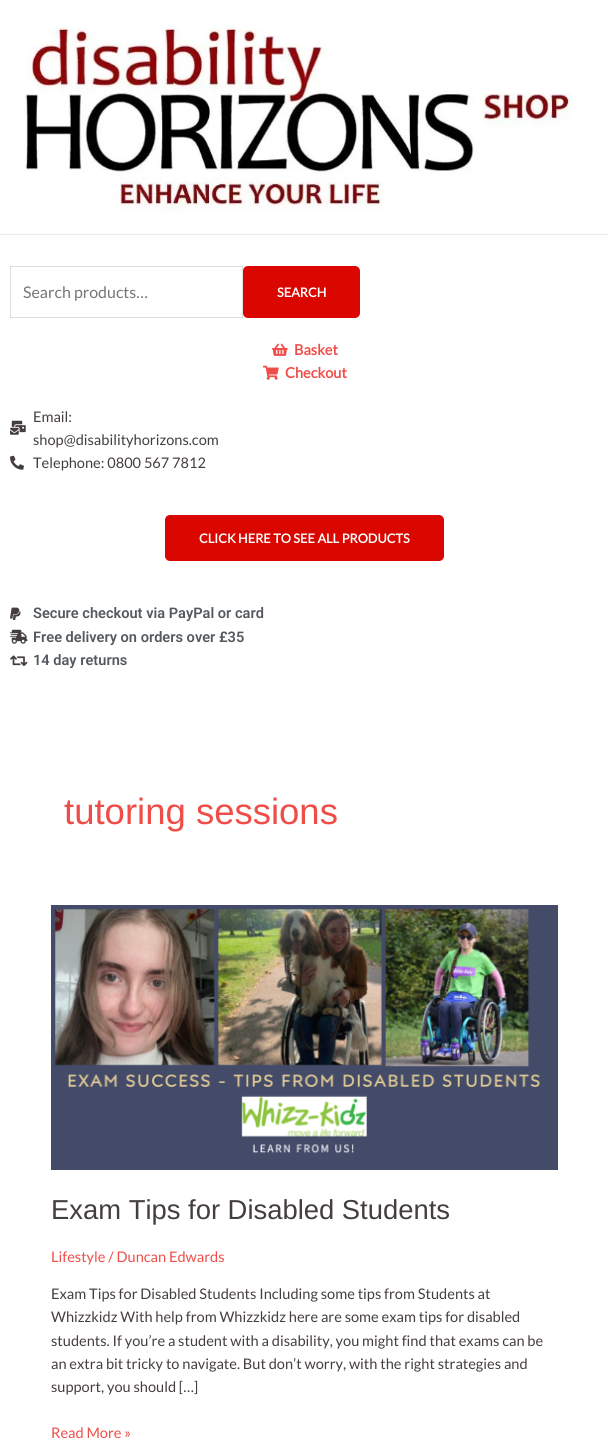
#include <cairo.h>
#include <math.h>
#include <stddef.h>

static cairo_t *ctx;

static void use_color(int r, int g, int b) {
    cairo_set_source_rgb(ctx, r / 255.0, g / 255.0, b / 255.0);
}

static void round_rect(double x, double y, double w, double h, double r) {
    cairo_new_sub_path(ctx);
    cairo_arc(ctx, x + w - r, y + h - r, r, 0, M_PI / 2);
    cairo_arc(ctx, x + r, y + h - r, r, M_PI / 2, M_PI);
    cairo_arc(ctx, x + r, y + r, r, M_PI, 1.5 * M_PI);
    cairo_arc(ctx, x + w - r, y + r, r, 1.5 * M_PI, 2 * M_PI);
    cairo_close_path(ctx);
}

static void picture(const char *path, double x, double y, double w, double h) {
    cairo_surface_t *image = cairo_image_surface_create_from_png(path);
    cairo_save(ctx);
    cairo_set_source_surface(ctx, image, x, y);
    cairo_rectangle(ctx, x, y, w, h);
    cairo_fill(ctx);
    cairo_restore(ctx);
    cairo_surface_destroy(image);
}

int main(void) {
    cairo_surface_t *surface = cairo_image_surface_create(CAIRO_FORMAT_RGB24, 609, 1438);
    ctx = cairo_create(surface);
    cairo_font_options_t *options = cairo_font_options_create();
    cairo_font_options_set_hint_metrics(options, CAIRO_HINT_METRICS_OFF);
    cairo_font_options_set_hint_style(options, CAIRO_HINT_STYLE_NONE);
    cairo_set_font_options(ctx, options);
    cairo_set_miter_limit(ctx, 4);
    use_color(255, 255, 255);
    cairo_paint(ctx);
    use_color(235, 235, 235);
    cairo_rectangle(ctx, 0, 234, 609, 1);
    cairo_fill(ctx);
    picture("img1.png", 24, 25, 550, 187);
    cairo_rectangle(ctx, 10.5, 266.5, 232, 51);
    use_color(221, 221, 221);
    cairo_set_line_width(ctx, 1);
    cairo_stroke(ctx);
    cairo_select_font_face(ctx, "Lato", CAIRO_FONT_SLANT_NORMAL, CAIRO_FONT_WEIGHT_NORMAL);
    cairo_set_font_size(ctx, 16);
    use_color(117, 117, 117);
    cairo_move_to(ctx, 23, 298);
    cairo_show_text(ctx, "Search products…");
    use_color(217, 7, 0);
    round_rect(243, 266, 117, 52, 5);
    cairo_fill(ctx);
    cairo_select_font_face(ctx, "Lato", CAIRO_FONT_SLANT_NORMAL, CAIRO_FONT_WEIGHT_BOLD);
    cairo_set_font_size(ctx, 12.75);
    use_color(255, 255, 255);
    cairo_move_to(ctx, 277, 297);
    cairo_show_text(ctx, "SEARCH");
    picture("img2.png", 272, 343, 16, 13);
    cairo_set_font_size(ctx, 14.6);
    use_color(239, 77, 72);
    cairo_move_to(ctx, 294, 355);
    cairo_show_text(ctx, "Basket");
    picture("img3.png", 263, 365, 16, 15);
    cairo_move_to(ctx, 285, 378);
    cairo_show_text(ctx, "Checkout");
    picture("img4.png", 10, 420, 16, 15);
    cairo_select_font_face(ctx, "Lato", CAIRO_FONT_SLANT_NORMAL, CAIRO_FONT_WEIGHT_NORMAL);
    use_color(69, 62, 62);
    cairo_move_to(ctx, 33, 422);
    cairo_show_text(ctx, "Email:");
    cairo_move_to(ctx, 33, 445);
    cairo_show_text(ctx, "shop@disabilityhorizons.com");
    picture("img5.png", 10, 455, 14, 15);
    cairo_move_to(ctx, 33, 468);
    cairo_show_text(ctx, "Telephone: 0800 567 7812");
    use_color(217, 7, 0);
    round_rect(165, 515, 279, 46, 5);
    cairo_fill(ctx);
    cairo_select_font_face(ctx, "Lato", CAIRO_FONT_SLANT_NORMAL, CAIRO_FONT_WEIGHT_BOLD);
    cairo_set_font_size(ctx, 12.75);
    use_color(255, 255, 255);
    cairo_move_to(ctx, 199, 543);
    cairo_show_text(ctx, "CLICK HERE TO SEE ALL PRODUCTS");
    picture("img6.png", 10, 607, 11, 13);
    cairo_select_font_face(ctx, "Roboto SemiBold", CAIRO_FONT_SLANT_NORMAL, CAIRO_FONT_WEIGHT_NORMAL);
    cairo_set_font_size(ctx, 14.6);
    use_color(84, 89, 95);
    cairo_move_to(ctx, 33, 618);
    cairo_show_text(ctx, "Secure checkout via PayPal or card");
    picture("img7.png", 10, 629, 18, 15);
    cairo_move_to(ctx, 33, 642);
    cairo_show_text(ctx, "Free delivery on orders over £35");
    picture("img8.png", 10, 655, 18, 11);
    cairo_move_to(ctx, 33, 665);
    cairo_show_text(ctx, "14 day returns");
    cairo_select_font_face(ctx, "Liberation Sans", CAIRO_FONT_SLANT_NORMAL, CAIRO_FONT_WEIGHT_NORMAL);
    cairo_set_font_size(ctx, 36.5);
    use_color(239, 77, 72);
    cairo_move_to(ctx, 64, 824);
    cairo_show_text(ctx, "tutoring sessions");
    picture("img9.png", 51, 905, 507, 265);
    cairo_set_font_size(ctx, 27.4);
    use_color(69, 62, 62);
    cairo_move_to(ctx, 51, 1219);
    cairo_show_text(ctx, "Exam Tips for Disabled Students");
    cairo_select_font_face(ctx, "Lato", CAIRO_FONT_SLANT_NORMAL, CAIRO_FONT_WEIGHT_NORMAL);
    cairo_set_font_size(ctx, 14.6);
    use_color(239, 77, 72);
    cairo_move_to(ctx, 51, 1262);
    cairo_show_text(ctx, "Lifestyle / Duncan Edwards");
    use_color(69, 62, 62);
    cairo_move_to(ctx, 51, 1299);
    cairo_show_text(ctx, "Exam Tips for Disabled Students Including some tips from Students at");
    cairo_move_to(ctx, 51, 1322);
    cairo_show_text(ctx, "Whizzkidz With help from Whizzkidz here are some exam tips for disabled");
    cairo_move_to(ctx, 51, 1346);
    cairo_show_text(ctx, "students. If you’re a student with a disability, you might find that exams can be");
    cairo_move_to(ctx, 51, 1369);
    cairo_show_text(ctx, "an extra bit tricky to navigate. But don’t worry, with the right strategies and");
    cairo_move_to(ctx, 51, 1392);
    cairo_show_text(ctx, "support, you should […]");
    use_color(239, 77, 72);
    cairo_move_to(ctx, 51, 1438);
    cairo_show_text(ctx, "Read More »");
    cairo_surface_write_to_png(surface, "result.png");
    cairo_font_options_destroy(options);
    cairo_destroy(ctx);
    cairo_surface_destroy(surface);
    return 0;
}
